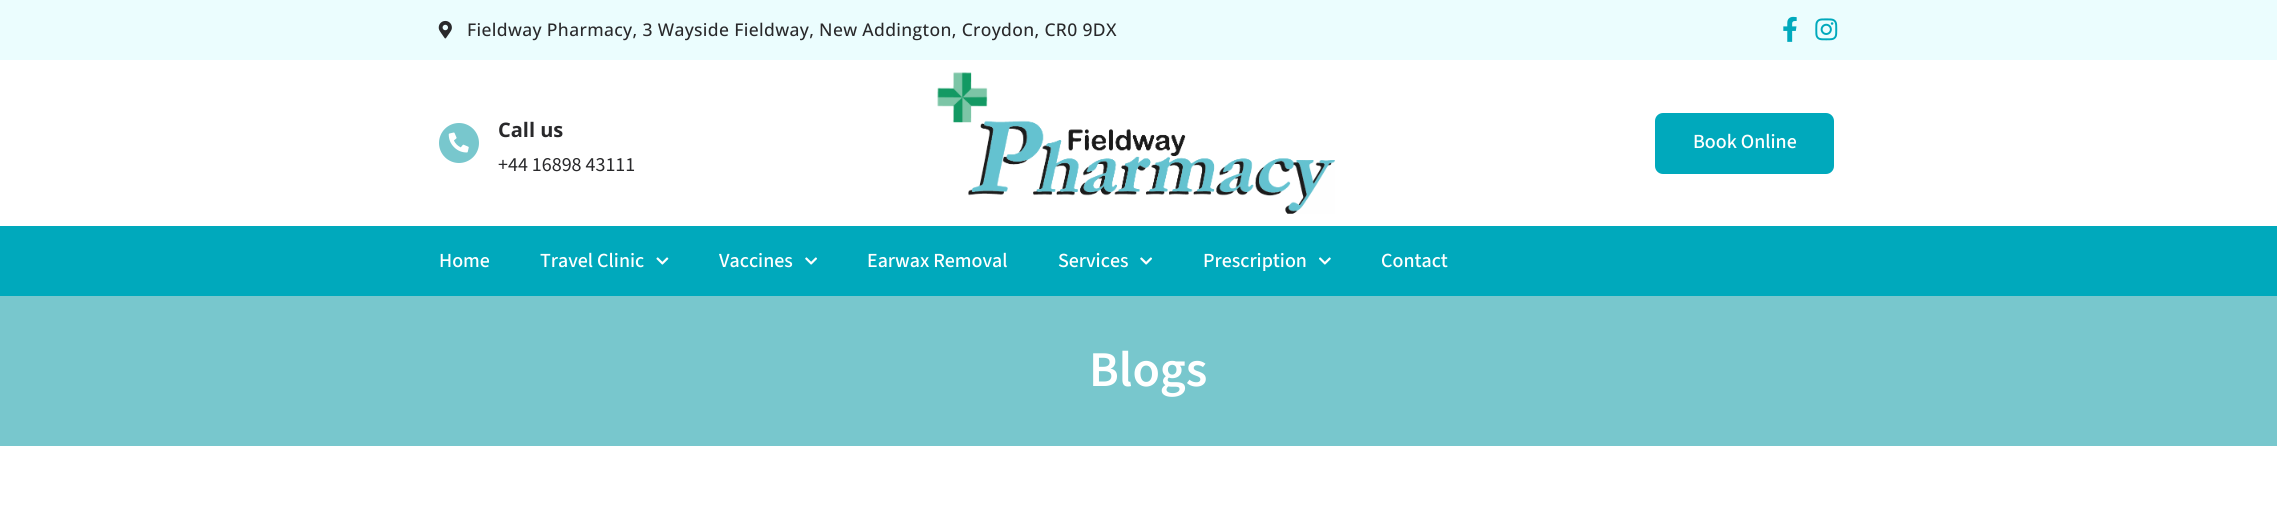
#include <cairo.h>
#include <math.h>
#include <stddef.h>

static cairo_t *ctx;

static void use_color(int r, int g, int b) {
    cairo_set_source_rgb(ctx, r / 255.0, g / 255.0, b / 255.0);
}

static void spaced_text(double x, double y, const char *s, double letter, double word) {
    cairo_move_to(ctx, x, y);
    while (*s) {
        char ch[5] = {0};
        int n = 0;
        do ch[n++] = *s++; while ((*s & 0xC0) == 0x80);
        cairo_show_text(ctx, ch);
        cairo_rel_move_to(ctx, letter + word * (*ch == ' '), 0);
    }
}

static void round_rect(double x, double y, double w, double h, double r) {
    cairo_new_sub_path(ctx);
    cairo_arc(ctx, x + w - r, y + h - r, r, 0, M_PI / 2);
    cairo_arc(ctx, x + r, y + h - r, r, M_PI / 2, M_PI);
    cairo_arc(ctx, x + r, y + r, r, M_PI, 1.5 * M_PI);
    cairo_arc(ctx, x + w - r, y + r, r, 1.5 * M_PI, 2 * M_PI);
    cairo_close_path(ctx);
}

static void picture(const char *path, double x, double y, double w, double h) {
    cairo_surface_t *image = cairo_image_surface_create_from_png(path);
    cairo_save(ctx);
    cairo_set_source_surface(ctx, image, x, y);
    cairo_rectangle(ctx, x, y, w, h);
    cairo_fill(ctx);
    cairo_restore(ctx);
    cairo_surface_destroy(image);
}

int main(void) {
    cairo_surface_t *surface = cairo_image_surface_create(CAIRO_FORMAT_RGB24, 2277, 514);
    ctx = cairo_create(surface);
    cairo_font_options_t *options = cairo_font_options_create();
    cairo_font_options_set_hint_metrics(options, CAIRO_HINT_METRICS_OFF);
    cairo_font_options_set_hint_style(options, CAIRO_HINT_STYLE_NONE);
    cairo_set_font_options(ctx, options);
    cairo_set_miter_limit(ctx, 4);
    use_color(255, 255, 255);
    cairo_paint(ctx);
    use_color(235, 253, 254);
    cairo_rectangle(ctx, 0, 0, 2277, 60);
    cairo_fill(ctx);
    picture("img1.png", 438, 20, 14, 19);
    cairo_select_font_face(ctx, "Open Sans Medium", CAIRO_FONT_SLANT_NORMAL, CAIRO_FONT_WEIGHT_NORMAL);
    cairo_set_font_size(ctx, 17.5);
    use_color(41, 41, 43);
    spaced_text(467, 36, "Fieldway Pharmacy, 3 Wayside Fieldway, New Addington, Croydon, CR0 9DX", 0.35, 0);
    picture("img2.png", 1783, 16, 14, 26);
    picture("img3.png", 1815, 18, 23, 23);
    use_color(120, 199, 205);
    cairo_arc(ctx, 459, 143, 20, 0, 2 * M_PI);
    cairo_fill(ctx);
    picture("img4.png", 448, 132, 21, 21);
    cairo_select_font_face(ctx, "Open Sans", CAIRO_FONT_SLANT_NORMAL, CAIRO_FONT_WEIGHT_BOLD);
    cairo_set_font_size(ctx, 20);
    use_color(41, 41, 43);
    cairo_move_to(ctx, 498, 137);
    cairo_show_text(ctx, "Call us");
    cairo_select_font_face(ctx, "Source Sans 3", CAIRO_FONT_SLANT_NORMAL, CAIRO_FONT_WEIGHT_NORMAL);
    cairo_move_to(ctx, 498, 171);
    cairo_show_text(ctx, "+44 16898 43111");
    picture("img5.png", 937, 72, 398, 142);
    use_color(0, 169, 188);
    round_rect(1655, 113, 179, 61, 8);
    cairo_fill(ctx);
    cairo_select_font_face(ctx, "Source Sans 3 Medium", CAIRO_FONT_SLANT_NORMAL, CAIRO_FONT_WEIGHT_NORMAL);
    use_color(255, 255, 255);
    cairo_move_to(ctx, 1693, 148);
    cairo_show_text(ctx, "Book Online");
    use_color(0, 169, 188);
    cairo_rectangle(ctx, 0, 226, 2277, 70);
    cairo_fill(ctx);
    use_color(255, 255, 255);
    cairo_move_to(ctx, 439, 267);
    cairo_show_text(ctx, "Home");
    cairo_move_to(ctx, 540, 267);
    cairo_show_text(ctx, "Travel Clinic");
    picture("img6.png", 656, 257, 13, 8);
    cairo_move_to(ctx, 719, 267);
    cairo_show_text(ctx, "Vaccines");
    picture("img7.png", 805, 257, 12, 8);
    cairo_move_to(ctx, 867, 267);
    cairo_show_text(ctx, "Earwax Removal");
    cairo_move_to(ctx, 1058, 267);
    cairo_show_text(ctx, "Services");
    picture("img7.png", 1140, 257, 12, 8);
    cairo_move_to(ctx, 1203, 267);
    cairo_show_text(ctx, "Prescription");
    picture("img8.png", 1319, 257, 12, 8);
    cairo_move_to(ctx, 1381, 267);
    cairo_show_text(ctx, "Contact");
    use_color(120, 199, 205);
    cairo_rectangle(ctx, 0, 296, 2277, 150);
    cairo_fill(ctx);
    cairo_select_font_face(ctx, "Source Sans 3 SemiBold", CAIRO_FONT_SLANT_NORMAL, CAIRO_FONT_WEIGHT_NORMAL);
    cairo_set_font_size(ctx, 50);
    use_color(255, 255, 255);
    cairo_move_to(ctx, 1089, 386);
    cairo_show_text(ctx, "Blogs");
    cairo_surface_write_to_png(surface, "result.png");
    cairo_font_options_destroy(options);
    cairo_destroy(ctx);
    cairo_surface_destroy(surface);
    return 0;
}
